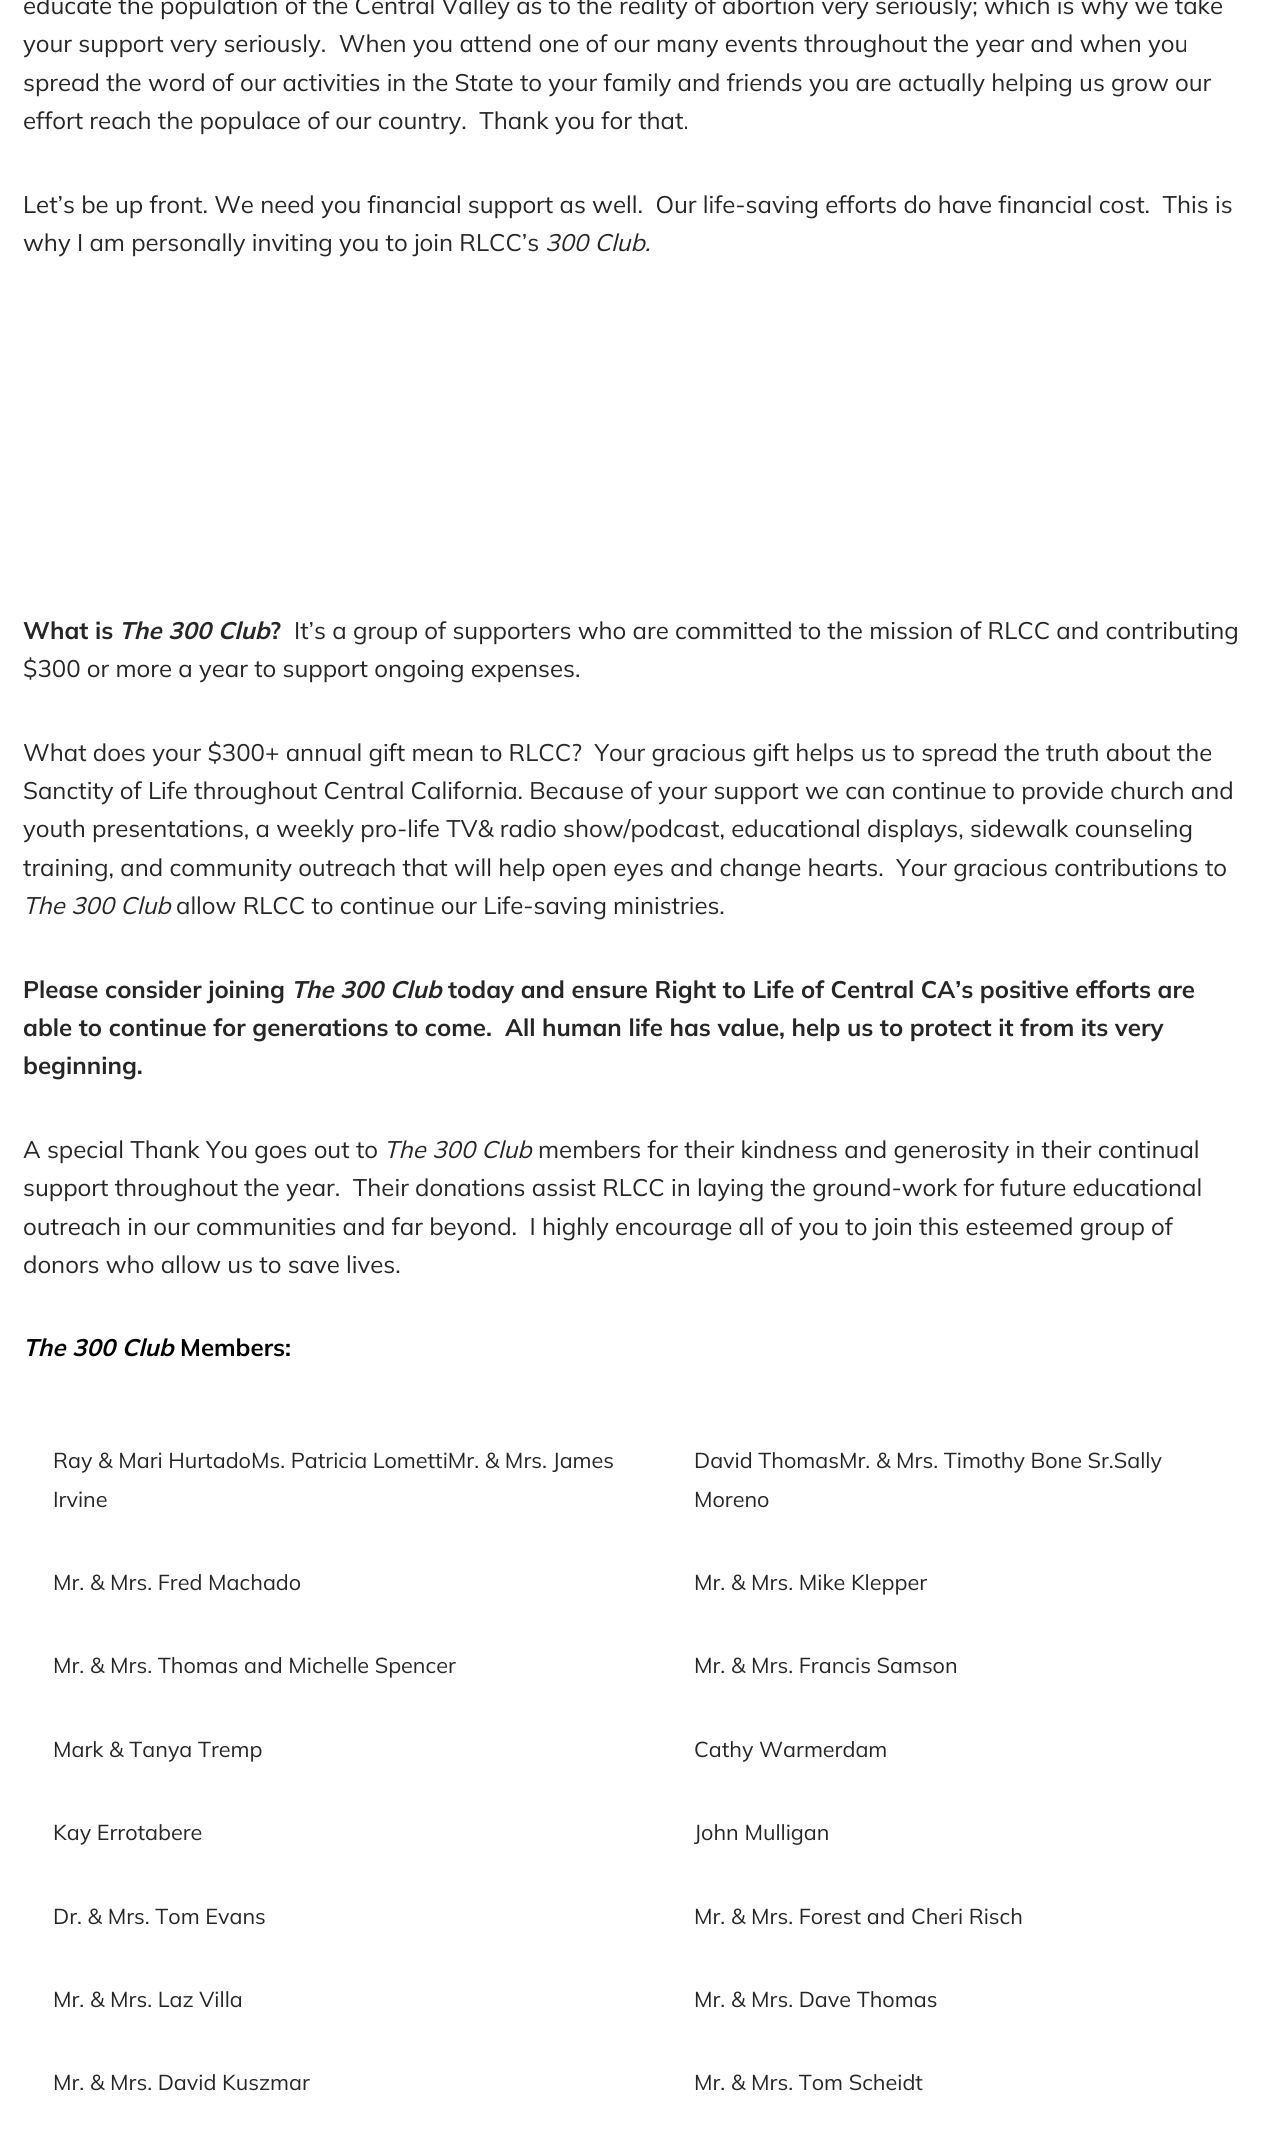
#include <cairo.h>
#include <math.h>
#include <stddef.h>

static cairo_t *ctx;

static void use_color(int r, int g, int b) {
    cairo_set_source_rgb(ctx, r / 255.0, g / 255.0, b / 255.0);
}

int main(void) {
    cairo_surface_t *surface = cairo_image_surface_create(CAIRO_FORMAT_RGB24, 1263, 2148);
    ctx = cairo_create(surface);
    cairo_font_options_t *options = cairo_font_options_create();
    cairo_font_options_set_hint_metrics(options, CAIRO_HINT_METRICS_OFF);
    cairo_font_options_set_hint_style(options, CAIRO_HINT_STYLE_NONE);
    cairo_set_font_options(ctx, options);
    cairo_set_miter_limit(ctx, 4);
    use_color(255, 255, 255);
    cairo_paint(ctx);
    cairo_select_font_face(ctx, "Mulish", CAIRO_FONT_SLANT_NORMAL, CAIRO_FONT_WEIGHT_NORMAL);
    cairo_set_font_size(ctx, 24);
    use_color(39, 38, 38);
    cairo_move_to(ctx, 23, 14);
    cairo_show_text(ctx, "educate the population of the Central Valley as to the reality of abortion very seriously; which is why we take");
    cairo_move_to(ctx, 23, 52);
    cairo_show_text(ctx, "your support very seriously.  When you attend one of our many events throughout the year and when you");
    cairo_move_to(ctx, 23, 91);
    cairo_show_text(ctx, "spread the word of our activities in the State to your family and friends you are actually helping us grow our");
    cairo_move_to(ctx, 23, 129);
    cairo_show_text(ctx, "effort reach the populace of our country.  Thank you for that.");
    cairo_move_to(ctx, 23, 213);
    cairo_show_text(ctx, "Let’s be up front. We need you financial support as well.  Our life-saving efforts do have financial cost.  This is");
    cairo_move_to(ctx, 23, 251);
    cairo_show_text(ctx, "why I am personally inviting you to join RLCC’s");
    cairo_select_font_face(ctx, "Mulish", CAIRO_FONT_SLANT_ITALIC, CAIRO_FONT_WEIGHT_NORMAL);
    cairo_move_to(ctx, 545, 251);
    cairo_show_text(ctx, "300 Club.");
    cairo_select_font_face(ctx, "Mulish", CAIRO_FONT_SLANT_NORMAL, CAIRO_FONT_WEIGHT_BOLD);
    cairo_move_to(ctx, 23, 639);
    cairo_show_text(ctx, "What is");
    cairo_select_font_face(ctx, "Mulish", CAIRO_FONT_SLANT_ITALIC, CAIRO_FONT_WEIGHT_BOLD);
    cairo_move_to(ctx, 119, 639);
    cairo_show_text(ctx, "The 300 Club");
    cairo_select_font_face(ctx, "Mulish", CAIRO_FONT_SLANT_NORMAL, CAIRO_FONT_WEIGHT_BOLD);
    cairo_move_to(ctx, 270, 639);
    cairo_show_text(ctx, "?");
    cairo_select_font_face(ctx, "Mulish", CAIRO_FONT_SLANT_NORMAL, CAIRO_FONT_WEIGHT_NORMAL);
    cairo_move_to(ctx, 294, 639);
    cairo_show_text(ctx, "It’s a group of supporters who are committed to the mission of RLCC and contributing");
    cairo_move_to(ctx, 23, 677);
    cairo_show_text(ctx, "$300 or more a year to support ongoing expenses.");
    cairo_move_to(ctx, 23, 761);
    cairo_show_text(ctx, "What does your $300+ annual gift mean to RLCC?  Your gracious gift helps us to spread the truth about the");
    cairo_move_to(ctx, 23, 799);
    cairo_show_text(ctx, "Sanctity of Life throughout Central California. Because of your support we can continue to provide church and");
    cairo_move_to(ctx, 23, 837);
    cairo_show_text(ctx, "youth presentations, a weekly pro-life TV& radio show/podcast, educational displays, sidewalk counseling");
    cairo_move_to(ctx, 23, 876);
    cairo_show_text(ctx, "training, and community outreach that will help open eyes and change hearts.  Your gracious contributions to");
    cairo_select_font_face(ctx, "Mulish", CAIRO_FONT_SLANT_ITALIC, CAIRO_FONT_WEIGHT_NORMAL);
    cairo_move_to(ctx, 23, 914);
    cairo_show_text(ctx, "The 300 Club");
    cairo_select_font_face(ctx, "Mulish", CAIRO_FONT_SLANT_NORMAL, CAIRO_FONT_WEIGHT_NORMAL);
    cairo_move_to(ctx, 176, 914);
    cairo_show_text(ctx, "allow RLCC to continue our Life-saving ministries.");
    cairo_select_font_face(ctx, "Mulish", CAIRO_FONT_SLANT_NORMAL, CAIRO_FONT_WEIGHT_BOLD);
    cairo_move_to(ctx, 23, 998);
    cairo_show_text(ctx, "Please consider joining");
    cairo_select_font_face(ctx, "Mulish", CAIRO_FONT_SLANT_ITALIC, CAIRO_FONT_WEIGHT_BOLD);
    cairo_move_to(ctx, 291, 998);
    cairo_show_text(ctx, "The 300 Club");
    cairo_select_font_face(ctx, "Mulish", CAIRO_FONT_SLANT_NORMAL, CAIRO_FONT_WEIGHT_BOLD);
    cairo_move_to(ctx, 448, 998);
    cairo_show_text(ctx, "today and ensure Right to Life of Central CA’s positive efforts are");
    cairo_move_to(ctx, 23, 1036);
    cairo_show_text(ctx, "able to continue for generations to come.  All human life has value, help us to protect it from its very");
    cairo_move_to(ctx, 23, 1074);
    cairo_show_text(ctx, "beginning.");
    cairo_select_font_face(ctx, "Mulish", CAIRO_FONT_SLANT_NORMAL, CAIRO_FONT_WEIGHT_NORMAL);
    cairo_move_to(ctx, 23, 1158);
    cairo_show_text(ctx, "A special Thank You goes out to");
    cairo_select_font_face(ctx, "Mulish", CAIRO_FONT_SLANT_ITALIC, CAIRO_FONT_WEIGHT_NORMAL);
    cairo_move_to(ctx, 384, 1158);
    cairo_show_text(ctx, "The 300 Club");
    cairo_select_font_face(ctx, "Mulish", CAIRO_FONT_SLANT_NORMAL, CAIRO_FONT_WEIGHT_NORMAL);
    cairo_move_to(ctx, 538, 1158);
    cairo_show_text(ctx, "members for their kindness and generosity in their continual");
    cairo_move_to(ctx, 23, 1196);
    cairo_show_text(ctx, "support throughout the year.  Their donations assist RLCC in laying the ground-work for future educational");
    cairo_move_to(ctx, 23, 1235);
    cairo_show_text(ctx, "outreach in our communities and far beyond.  I highly encourage all of you to join this esteemed group of");
    cairo_move_to(ctx, 23, 1273);
    cairo_show_text(ctx, "donors who allow us to save lives.");
    cairo_select_font_face(ctx, "Mulish", CAIRO_FONT_SLANT_ITALIC, CAIRO_FONT_WEIGHT_BOLD);
    use_color(0, 0, 0);
    cairo_move_to(ctx, 23, 1356);
    cairo_show_text(ctx, "The 300 Club");
    cairo_select_font_face(ctx, "Mulish", CAIRO_FONT_SLANT_NORMAL, CAIRO_FONT_WEIGHT_BOLD);
    cairo_move_to(ctx, 180, 1356);
    cairo_show_text(ctx, "Members:");
    cairo_select_font_face(ctx, "Mulish", CAIRO_FONT_SLANT_NORMAL, CAIRO_FONT_WEIGHT_NORMAL);
    cairo_set_font_size(ctx, 21.6);
    use_color(39, 38, 38);
    cairo_move_to(ctx, 53, 1468);
    cairo_show_text(ctx, "Ray & Mari HurtadoMs. Patricia LomettiMr. & Mrs. James");
    cairo_move_to(ctx, 53, 1507);
    cairo_show_text(ctx, "Irvine");
    cairo_move_to(ctx, 53, 1590);
    cairo_show_text(ctx, "Mr. & Mrs. Fred Machado");
    cairo_move_to(ctx, 53, 1673);
    cairo_show_text(ctx, "Mr. & Mrs. Thomas and Michelle Spencer");
    cairo_move_to(ctx, 53, 1757);
    cairo_show_text(ctx, "Mark & Tanya Tremp");
    cairo_move_to(ctx, 53, 1840);
    cairo_show_text(ctx, "Kay Errotabere");
    cairo_move_to(ctx, 53, 1924);
    cairo_show_text(ctx, "Dr. & Mrs. Tom Evans");
    cairo_move_to(ctx, 53, 2007);
    cairo_show_text(ctx, "Mr. & Mrs. Laz Villa");
    cairo_move_to(ctx, 53, 2090);
    cairo_show_text(ctx, "Mr. & Mrs. David Kuszmar");
    cairo_move_to(ctx, 694, 1468);
    cairo_show_text(ctx, "David ThomasMr. & Mrs. Timothy Bone Sr.Sally");
    cairo_move_to(ctx, 694, 1507);
    cairo_show_text(ctx, "Moreno");
    cairo_move_to(ctx, 694, 1590);
    cairo_show_text(ctx, "Mr. & Mrs. Mike Klepper");
    cairo_move_to(ctx, 694, 1673);
    cairo_show_text(ctx, "Mr. & Mrs. Francis Samson");
    cairo_move_to(ctx, 694, 1757);
    cairo_show_text(ctx, "Cathy Warmerdam");
    cairo_move_to(ctx, 694, 1840);
    cairo_show_text(ctx, "John Mulligan");
    cairo_move_to(ctx, 694, 1924);
    cairo_show_text(ctx, "Mr. & Mrs. Forest and Cheri Risch");
    cairo_move_to(ctx, 694, 2007);
    cairo_show_text(ctx, "Mr. & Mrs. Dave Thomas");
    cairo_move_to(ctx, 694, 2090);
    cairo_show_text(ctx, "Mr. & Mrs. Tom Scheidt");
    cairo_surface_write_to_png(surface, "result.png");
    cairo_font_options_destroy(options);
    cairo_destroy(ctx);
    cairo_surface_destroy(surface);
    return 0;
}
